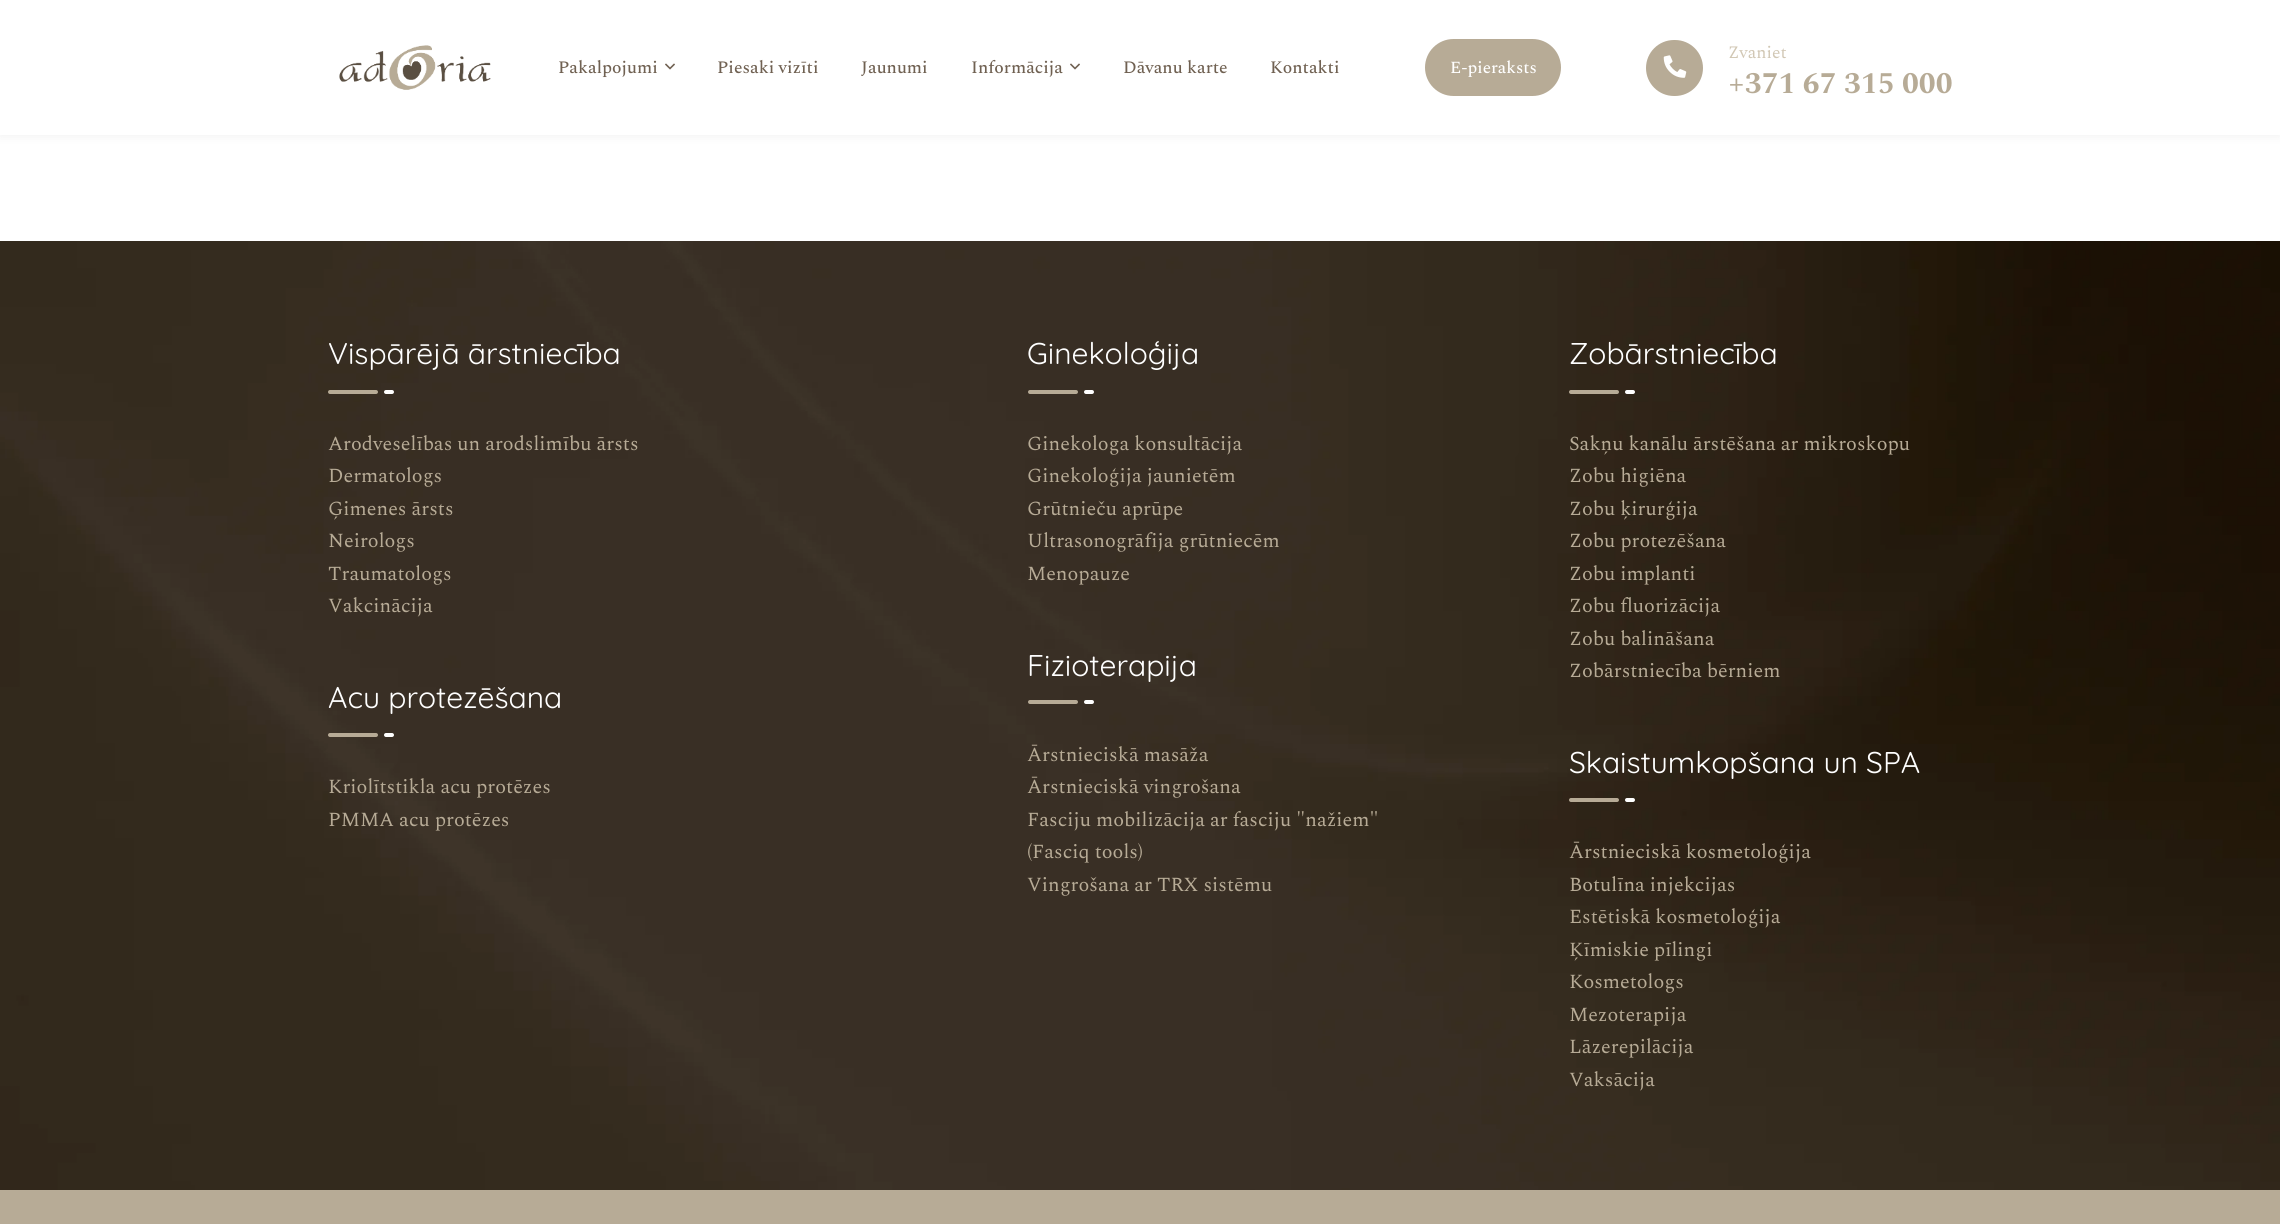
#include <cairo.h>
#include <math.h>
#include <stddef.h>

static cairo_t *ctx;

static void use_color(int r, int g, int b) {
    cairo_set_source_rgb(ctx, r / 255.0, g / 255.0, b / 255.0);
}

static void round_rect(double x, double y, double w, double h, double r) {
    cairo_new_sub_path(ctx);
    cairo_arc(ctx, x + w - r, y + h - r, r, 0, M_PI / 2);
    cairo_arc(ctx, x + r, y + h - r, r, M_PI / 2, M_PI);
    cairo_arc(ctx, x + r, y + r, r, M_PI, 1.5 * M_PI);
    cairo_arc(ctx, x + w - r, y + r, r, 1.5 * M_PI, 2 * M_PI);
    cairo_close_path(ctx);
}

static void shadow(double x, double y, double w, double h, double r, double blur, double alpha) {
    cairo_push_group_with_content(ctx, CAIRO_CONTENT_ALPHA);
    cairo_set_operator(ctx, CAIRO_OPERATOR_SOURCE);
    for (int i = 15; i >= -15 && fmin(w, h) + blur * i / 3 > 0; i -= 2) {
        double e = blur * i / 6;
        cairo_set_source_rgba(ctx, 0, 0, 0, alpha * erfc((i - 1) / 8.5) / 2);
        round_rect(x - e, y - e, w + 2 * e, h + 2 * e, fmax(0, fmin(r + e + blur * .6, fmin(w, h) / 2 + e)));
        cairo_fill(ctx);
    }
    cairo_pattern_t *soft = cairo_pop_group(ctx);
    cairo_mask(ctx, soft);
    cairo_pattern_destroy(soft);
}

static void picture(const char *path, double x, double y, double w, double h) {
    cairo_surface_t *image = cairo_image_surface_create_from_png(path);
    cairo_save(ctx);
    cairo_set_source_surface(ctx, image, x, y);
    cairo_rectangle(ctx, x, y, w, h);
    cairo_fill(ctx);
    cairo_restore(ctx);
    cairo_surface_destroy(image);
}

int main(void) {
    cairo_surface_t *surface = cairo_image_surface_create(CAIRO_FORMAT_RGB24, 2280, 1224);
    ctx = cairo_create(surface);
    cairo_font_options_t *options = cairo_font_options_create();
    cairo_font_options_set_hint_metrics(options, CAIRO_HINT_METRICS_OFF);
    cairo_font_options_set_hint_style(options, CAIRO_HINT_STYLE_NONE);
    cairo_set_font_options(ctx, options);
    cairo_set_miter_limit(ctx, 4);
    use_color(255, 255, 255);
    cairo_paint(ctx);
    use_color(0, 0, 0);
    shadow(0, 0, 2280, 135, 0, 6, 0.07);
    use_color(255, 255, 255);
    cairo_rectangle(ctx, 0, 0, 2280, 135);
    cairo_fill(ctx);
    picture("img1.png", 339, 45, 152, 45);
    cairo_select_font_face(ctx, "Spectral Medium", CAIRO_FONT_SLANT_NORMAL, CAIRO_FONT_WEIGHT_NORMAL);
    cairo_set_font_size(ctx, 17.5);
    use_color(112, 97, 82);
    cairo_move_to(ctx, 558, 73);
    cairo_show_text(ctx, "Pakalpojumi");
    picture("img2.png", 665, 63, 10, 7);
    cairo_move_to(ctx, 717, 73);
    cairo_show_text(ctx, "Piesaki vizīti");
    cairo_move_to(ctx, 861, 73);
    cairo_show_text(ctx, "Jaunumi");
    cairo_move_to(ctx, 971, 73);
    cairo_show_text(ctx, "Informācija");
    picture("img2.png", 1070, 63, 10, 7);
    cairo_move_to(ctx, 1123, 73);
    cairo_show_text(ctx, "Dāvanu karte");
    cairo_move_to(ctx, 1270, 73);
    cairo_show_text(ctx, "Kontakti");
    use_color(183, 171, 150);
    round_rect(1425, 39, 136, 57, 28.5);
    cairo_fill(ctx);
    cairo_set_font_size(ctx, 17);
    use_color(255, 255, 255);
    cairo_move_to(ctx, 1450, 73);
    cairo_show_text(ctx, "E-pieraksts");
    use_color(183, 171, 150);
    round_rect(1646, 40, 57, 56, 28);
    cairo_fill(ctx);
    picture("img3.png", 1663, 55, 24, 23);
    cairo_select_font_face(ctx, "Spectral", CAIRO_FONT_SLANT_NORMAL, CAIRO_FONT_WEIGHT_NORMAL);
    cairo_set_font_size(ctx, 17.5);
    use_color(209, 199, 180);
    cairo_move_to(ctx, 1728, 58);
    cairo_show_text(ctx, "Zvaniet");
    cairo_select_font_face(ctx, "Spectral", CAIRO_FONT_SLANT_NORMAL, CAIRO_FONT_WEIGHT_BOLD);
    cairo_set_font_size(ctx, 30);
    use_color(183, 171, 150);
    cairo_move_to(ctx, 1728, 93);
    cairo_show_text(ctx, "+371 67 315 000");
    picture("img4.png", 0, 241, 2280, 949);
    cairo_select_font_face(ctx, "Quicksand", CAIRO_FONT_SLANT_NORMAL, CAIRO_FONT_WEIGHT_NORMAL);
    use_color(255, 255, 255);
    cairo_move_to(ctx, 328, 364);
    cairo_show_text(ctx, "Vispārējā ārstniecība");
    use_color(183, 171, 150);
    round_rect(328, 390, 50, 4, 2);
    cairo_fill(ctx);
    use_color(255, 255, 255);
    round_rect(384, 390, 10, 4, 2);
    cairo_fill(ctx);
    cairo_select_font_face(ctx, "Spectral", CAIRO_FONT_SLANT_NORMAL, CAIRO_FONT_WEIGHT_NORMAL);
    cairo_set_font_size(ctx, 20);
    use_color(183, 171, 150);
    cairo_move_to(ctx, 328, 450);
    cairo_show_text(ctx, "Arodveselības un arodslimību ārsts");
    cairo_move_to(ctx, 328, 482);
    cairo_show_text(ctx, "Dermatologs");
    cairo_move_to(ctx, 328, 515);
    cairo_show_text(ctx, "Ģimenes ārsts");
    cairo_move_to(ctx, 328, 547);
    cairo_show_text(ctx, "Neirologs");
    cairo_move_to(ctx, 328, 580);
    cairo_show_text(ctx, "Traumatologs");
    cairo_move_to(ctx, 328, 612);
    cairo_show_text(ctx, "Vakcinācija");
    cairo_select_font_face(ctx, "Quicksand", CAIRO_FONT_SLANT_NORMAL, CAIRO_FONT_WEIGHT_NORMAL);
    cairo_set_font_size(ctx, 30);
    use_color(255, 255, 255);
    cairo_move_to(ctx, 328, 708);
    cairo_show_text(ctx, "Acu protezēšana");
    use_color(183, 171, 150);
    round_rect(328, 733, 50, 4, 2);
    cairo_fill(ctx);
    use_color(255, 255, 255);
    round_rect(384, 733, 10, 4, 2);
    cairo_fill(ctx);
    cairo_select_font_face(ctx, "Spectral", CAIRO_FONT_SLANT_NORMAL, CAIRO_FONT_WEIGHT_NORMAL);
    cairo_set_font_size(ctx, 20);
    use_color(183, 171, 150);
    cairo_move_to(ctx, 328, 793);
    cairo_show_text(ctx, "Kriolītstikla acu protēzes");
    cairo_move_to(ctx, 328, 826);
    cairo_show_text(ctx, "PMMA acu protēzes");
    cairo_select_font_face(ctx, "Quicksand", CAIRO_FONT_SLANT_NORMAL, CAIRO_FONT_WEIGHT_NORMAL);
    cairo_set_font_size(ctx, 30);
    use_color(255, 255, 255);
    cairo_move_to(ctx, 1027, 364);
    cairo_show_text(ctx, "Ginekoloģija");
    use_color(183, 171, 150);
    round_rect(1028, 390, 50, 4, 2);
    cairo_fill(ctx);
    use_color(255, 255, 255);
    round_rect(1084, 390, 10, 4, 2);
    cairo_fill(ctx);
    cairo_select_font_face(ctx, "Spectral", CAIRO_FONT_SLANT_NORMAL, CAIRO_FONT_WEIGHT_NORMAL);
    cairo_set_font_size(ctx, 20);
    use_color(183, 171, 150);
    cairo_move_to(ctx, 1027, 450);
    cairo_show_text(ctx, "Ginekologa konsultācija");
    cairo_move_to(ctx, 1027, 482);
    cairo_show_text(ctx, "Ginekoloģija jaunietēm");
    cairo_move_to(ctx, 1027, 515);
    cairo_show_text(ctx, "Grūtnieču aprūpe");
    cairo_move_to(ctx, 1027, 547);
    cairo_show_text(ctx, "Ultrasonogrāfija grūtniecēm");
    cairo_move_to(ctx, 1027, 580);
    cairo_show_text(ctx, "Menopauze");
    cairo_select_font_face(ctx, "Quicksand", CAIRO_FONT_SLANT_NORMAL, CAIRO_FONT_WEIGHT_NORMAL);
    cairo_set_font_size(ctx, 30);
    use_color(255, 255, 255);
    cairo_move_to(ctx, 1027, 676);
    cairo_show_text(ctx, "Fizioterapija");
    use_color(183, 171, 150);
    round_rect(1028, 700, 50, 4, 2);
    cairo_fill(ctx);
    use_color(255, 255, 255);
    round_rect(1084, 700, 10, 4, 2);
    cairo_fill(ctx);
    cairo_select_font_face(ctx, "Spectral", CAIRO_FONT_SLANT_NORMAL, CAIRO_FONT_WEIGHT_NORMAL);
    cairo_set_font_size(ctx, 20);
    use_color(183, 171, 150);
    cairo_move_to(ctx, 1027, 761);
    cairo_show_text(ctx, "Ārstnieciskā masāža");
    cairo_move_to(ctx, 1027, 793);
    cairo_show_text(ctx, "Ārstnieciskā vingrošana");
    cairo_move_to(ctx, 1027, 826);
    cairo_show_text(ctx, "Fasciju mobilizācija ar fasciju \"nažiem\"");
    cairo_move_to(ctx, 1027, 858);
    cairo_show_text(ctx, "(Fasciq tools)");
    cairo_move_to(ctx, 1027, 891);
    cairo_show_text(ctx, "Vingrošana ar TRX sistēmu");
    cairo_select_font_face(ctx, "Quicksand", CAIRO_FONT_SLANT_NORMAL, CAIRO_FONT_WEIGHT_NORMAL);
    cairo_set_font_size(ctx, 30);
    use_color(255, 255, 255);
    cairo_move_to(ctx, 1569, 364);
    cairo_show_text(ctx, "Zobārstniecība");
    use_color(183, 171, 150);
    round_rect(1569, 390, 50, 4, 2);
    cairo_fill(ctx);
    use_color(255, 255, 255);
    round_rect(1625, 390, 10, 4, 2);
    cairo_fill(ctx);
    cairo_select_font_face(ctx, "Spectral", CAIRO_FONT_SLANT_NORMAL, CAIRO_FONT_WEIGHT_NORMAL);
    cairo_set_font_size(ctx, 20);
    use_color(183, 171, 150);
    cairo_move_to(ctx, 1569, 450);
    cairo_show_text(ctx, "Sakņu kanālu ārstēšana ar mikroskopu");
    cairo_move_to(ctx, 1569, 482);
    cairo_show_text(ctx, "Zobu higiēna");
    cairo_move_to(ctx, 1569, 515);
    cairo_show_text(ctx, "Zobu ķirurģija");
    cairo_move_to(ctx, 1569, 547);
    cairo_show_text(ctx, "Zobu protezēšana");
    cairo_move_to(ctx, 1569, 580);
    cairo_show_text(ctx, "Zobu implanti");
    cairo_move_to(ctx, 1569, 612);
    cairo_show_text(ctx, "Zobu fluorizācija");
    cairo_move_to(ctx, 1569, 645);
    cairo_show_text(ctx, "Zobu balināšana");
    cairo_move_to(ctx, 1569, 677);
    cairo_show_text(ctx, "Zobārstniecība bērniem");
    cairo_select_font_face(ctx, "Quicksand", CAIRO_FONT_SLANT_NORMAL, CAIRO_FONT_WEIGHT_NORMAL);
    cairo_set_font_size(ctx, 30);
    use_color(255, 255, 255);
    cairo_move_to(ctx, 1569, 773);
    cairo_show_text(ctx, "Skaistumkopšana un SPA");
    use_color(183, 171, 150);
    round_rect(1569, 798, 50, 4, 2);
    cairo_fill(ctx);
    use_color(255, 255, 255);
    round_rect(1625, 798, 10, 4, 2);
    cairo_fill(ctx);
    cairo_select_font_face(ctx, "Spectral", CAIRO_FONT_SLANT_NORMAL, CAIRO_FONT_WEIGHT_NORMAL);
    cairo_set_font_size(ctx, 20);
    use_color(183, 171, 150);
    cairo_move_to(ctx, 1569, 858);
    cairo_show_text(ctx, "Ārstnieciskā kosmetoloģija");
    cairo_move_to(ctx, 1569, 891);
    cairo_show_text(ctx, "Botulīna injekcijas");
    cairo_move_to(ctx, 1569, 923);
    cairo_show_text(ctx, "Estētiskā kosmetoloģija");
    cairo_move_to(ctx, 1569, 956);
    cairo_show_text(ctx, "Ķīmiskie pīlingi");
    cairo_move_to(ctx, 1569, 988);
    cairo_show_text(ctx, "Kosmetologs");
    cairo_move_to(ctx, 1569, 1021);
    cairo_show_text(ctx, "Mezoterapija");
    cairo_move_to(ctx, 1569, 1053);
    cairo_show_text(ctx, "Lāzerepilācija");
    cairo_move_to(ctx, 1569, 1086);
    cairo_show_text(ctx, "Vaksācija");
    cairo_rectangle(ctx, 0, 1190, 2280, 34);
    cairo_fill(ctx);
    cairo_surface_write_to_png(surface, "result.png");
    cairo_font_options_destroy(options);
    cairo_destroy(ctx);
    cairo_surface_destroy(surface);
    return 0;
}
